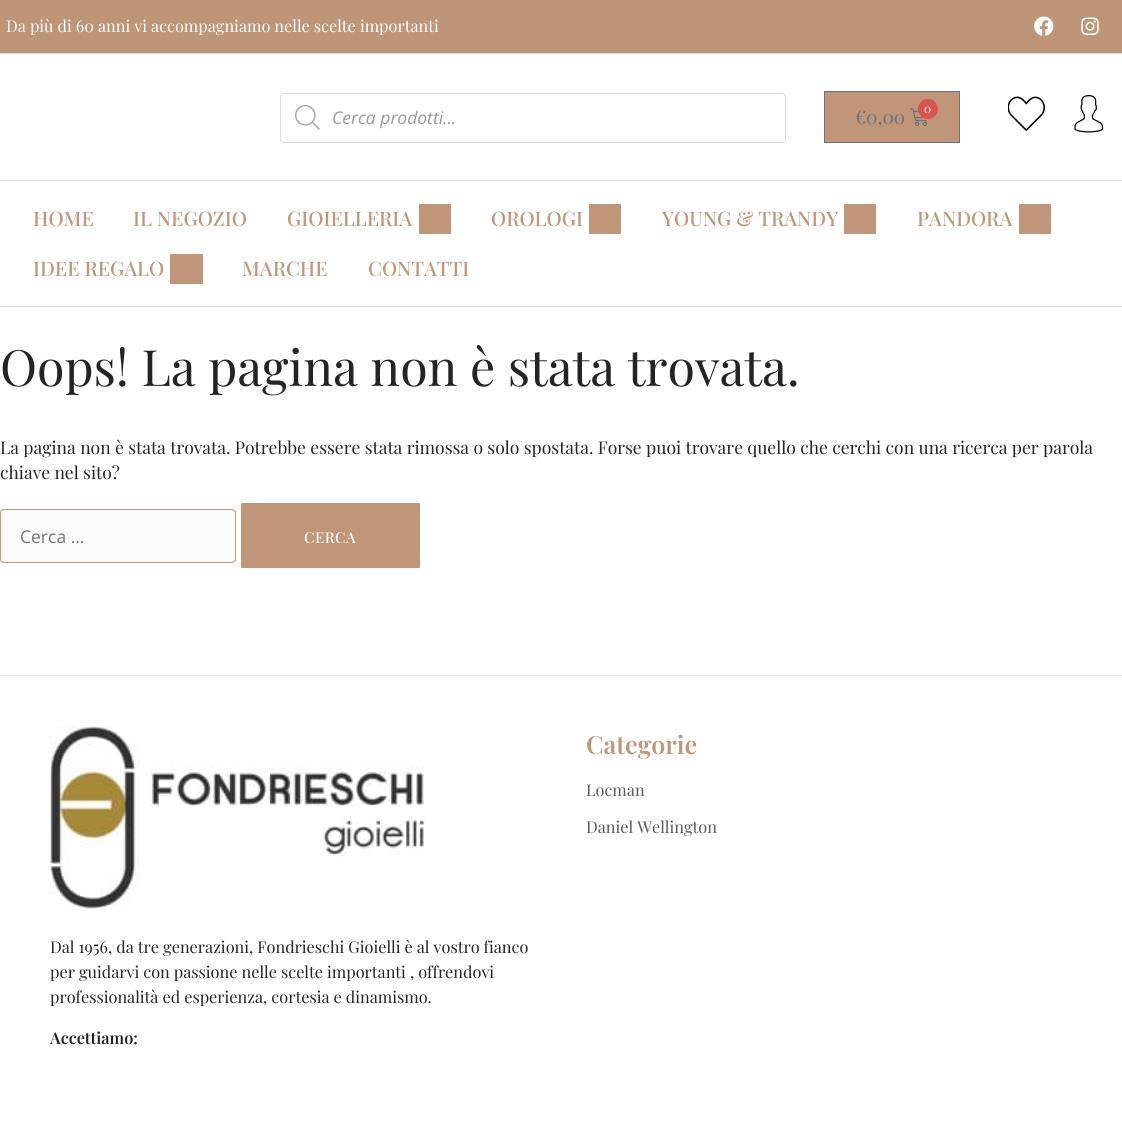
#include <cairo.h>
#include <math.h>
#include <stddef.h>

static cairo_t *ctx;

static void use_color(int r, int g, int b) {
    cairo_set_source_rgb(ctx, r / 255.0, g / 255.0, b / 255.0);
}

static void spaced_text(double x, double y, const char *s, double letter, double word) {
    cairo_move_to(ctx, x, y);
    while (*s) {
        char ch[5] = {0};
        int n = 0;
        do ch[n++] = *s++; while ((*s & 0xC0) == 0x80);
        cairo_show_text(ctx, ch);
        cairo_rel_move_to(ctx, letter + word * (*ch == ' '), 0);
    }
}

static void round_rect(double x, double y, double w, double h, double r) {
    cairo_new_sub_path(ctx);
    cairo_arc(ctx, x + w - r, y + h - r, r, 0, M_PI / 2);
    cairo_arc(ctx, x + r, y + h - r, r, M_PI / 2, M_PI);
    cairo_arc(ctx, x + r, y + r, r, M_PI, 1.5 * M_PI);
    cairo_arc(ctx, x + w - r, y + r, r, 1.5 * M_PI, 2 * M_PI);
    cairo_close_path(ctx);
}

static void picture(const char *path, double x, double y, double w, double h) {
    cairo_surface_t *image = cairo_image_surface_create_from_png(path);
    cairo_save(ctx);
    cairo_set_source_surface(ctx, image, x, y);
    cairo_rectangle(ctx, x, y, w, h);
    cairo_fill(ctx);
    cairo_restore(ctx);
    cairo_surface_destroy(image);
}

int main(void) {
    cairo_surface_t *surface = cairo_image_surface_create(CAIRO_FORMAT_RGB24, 1122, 1147);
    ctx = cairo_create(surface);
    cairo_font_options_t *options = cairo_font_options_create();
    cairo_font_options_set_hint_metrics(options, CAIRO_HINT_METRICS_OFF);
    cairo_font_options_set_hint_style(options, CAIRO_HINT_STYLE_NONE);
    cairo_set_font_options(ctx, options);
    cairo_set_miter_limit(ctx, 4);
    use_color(255, 255, 255);
    cairo_paint(ctx);
    use_color(191, 149, 120);
    cairo_rectangle(ctx, 0, 0, 1122, 53);
    cairo_fill(ctx);
    use_color(221, 221, 221);
    cairo_rectangle(ctx, 0, 53, 1122, 1);
    cairo_fill(ctx);
    cairo_select_font_face(ctx, "Playfair Display", CAIRO_FONT_SLANT_NORMAL, CAIRO_FONT_WEIGHT_NORMAL);
    cairo_set_font_size(ctx, 16.25);
    use_color(255, 255, 255);
    cairo_move_to(ctx, 6, 32);
    cairo_show_text(ctx, "Da più di 60 anni vi accompagniamo nelle scelte importanti");
    picture("img1.png", 1034, 16, 20, 20);
    picture("img2.png", 1081, 17, 18, 18);
    round_rect(280.5, 93.5, 505, 49, 3.5);
    use_color(221, 221, 221);
    cairo_set_line_width(ctx, 1);
    cairo_stroke(ctx);
    picture("img3.png", 295, 105, 25, 25);
    cairo_select_font_face(ctx, "Open Sans", CAIRO_FONT_SLANT_ITALIC, CAIRO_FONT_WEIGHT_NORMAL);
    cairo_set_font_size(ctx, 17.5);
    use_color(153, 153, 153);
    cairo_move_to(ctx, 332, 124);
    cairo_show_text(ctx, "Cerca prodotti...");
    use_color(192, 149, 120);
    cairo_rectangle(ctx, 824.5, 91.5, 135, 51);
    cairo_fill_preserve(ctx);
    use_color(105, 114, 125);
    cairo_stroke(ctx);
    cairo_select_font_face(ctx, "Playfair Display", CAIRO_FONT_SLANT_NORMAL, CAIRO_FONT_WEIGHT_NORMAL);
    cairo_set_font_size(ctx, 19);
    cairo_move_to(ctx, 855, 124);
    cairo_show_text(ctx, "€0,00");
    picture("img4.png", 910, 108, 17, 18);
    use_color(217, 83, 79);
    cairo_arc(ctx, 928, 109, 10, 0, 2 * M_PI);
    cairo_fill(ctx);
    cairo_set_font_size(ctx, 12);
    use_color(255, 255, 255);
    cairo_move_to(ctx, 924, 113);
    cairo_show_text(ctx, "0");
    picture("img5.png", 1008, 96, 37, 35);
    picture("img6.png", 1074, 95, 30, 38);
    use_color(221, 221, 221);
    cairo_rectangle(ctx, 0, 180, 1122, 1);
    cairo_fill(ctx);
    cairo_rectangle(ctx, 0, 306, 1122, 1);
    cairo_fill(ctx);
    cairo_select_font_face(ctx, "Playfair Display Medium", CAIRO_FONT_SLANT_NORMAL, CAIRO_FONT_WEIGHT_NORMAL);
    cairo_set_font_size(ctx, 20);
    use_color(192, 149, 120);
    cairo_move_to(ctx, 33, 226);
    cairo_show_text(ctx, "HOME");
    cairo_move_to(ctx, 133, 226);
    cairo_show_text(ctx, "IL NEGOZIO");
    cairo_move_to(ctx, 287, 226);
    cairo_show_text(ctx, "GIOIELLERIA");
    round_rect(419, 204, 32, 30, 1);
    cairo_fill(ctx);
    cairo_move_to(ctx, 491, 226);
    cairo_show_text(ctx, "OROLOGI");
    round_rect(589, 204, 32, 30, 1);
    cairo_fill(ctx);
    cairo_move_to(ctx, 662, 226);
    cairo_show_text(ctx, "YOUNG & TRANDY");
    round_rect(844, 204, 32, 30, 1);
    cairo_fill(ctx);
    cairo_move_to(ctx, 917, 226);
    cairo_show_text(ctx, "PANDORA");
    round_rect(1019, 204, 32, 30, 1);
    cairo_fill(ctx);
    cairo_move_to(ctx, 33, 276);
    cairo_show_text(ctx, "IDEE REGALO");
    round_rect(170, 254, 33, 30, 1);
    cairo_fill(ctx);
    cairo_move_to(ctx, 242, 276);
    cairo_show_text(ctx, "MARCHE");
    cairo_move_to(ctx, 368, 276);
    cairo_show_text(ctx, "CONTATTI");
    cairo_select_font_face(ctx, "Playfair Display", CAIRO_FONT_SLANT_NORMAL, CAIRO_FONT_WEIGHT_NORMAL);
    cairo_set_font_size(ctx, 50);
    use_color(36, 36, 36);
    cairo_move_to(ctx, 0, 386);
    cairo_show_text(ctx, "Oops! La pagina non è stata trovata.");
    cairo_set_font_size(ctx, 17.5);
    cairo_move_to(ctx, 0, 454);
    cairo_show_text(ctx, "La pagina non è stata trovata. Potrebbe essere stata rimossa o solo spostata. Forse puoi trovare quello che cerchi con una ricerca per parola");
    cairo_move_to(ctx, 0, 479);
    cairo_show_text(ctx, "chiave nel sito?");
    use_color(250, 250, 250);
    round_rect(0.5, 509.5, 235, 53, 3.5);
    cairo_fill_preserve(ctx);
    use_color(192, 149, 120);
    cairo_stroke(ctx);
    cairo_select_font_face(ctx, "Open Sans", CAIRO_FONT_SLANT_NORMAL, CAIRO_FONT_WEIGHT_NORMAL);
    use_color(117, 117, 117);
    cairo_move_to(ctx, 20, 543);
    cairo_show_text(ctx, "Cerca …");
    use_color(192, 149, 120);
    round_rect(241, 503, 179, 65, 1);
    cairo_fill(ctx);
    cairo_select_font_face(ctx, "Playfair Display Medium", CAIRO_FONT_SLANT_NORMAL, CAIRO_FONT_WEIGHT_NORMAL);
    cairo_set_font_size(ctx, 15);
    use_color(255, 255, 255);
    spaced_text(304, 543, "CERCA", 0.5, 0);
    use_color(235, 235, 235);
    cairo_rectangle(ctx, 0, 675, 1122, 1);
    cairo_fill(ctx);
    cairo_select_font_face(ctx, "Playfair Display SemiBold", CAIRO_FONT_SLANT_NORMAL, CAIRO_FONT_WEIGHT_NORMAL);
    cairo_set_font_size(ctx, 25);
    use_color(192, 149, 120);
    cairo_move_to(ctx, 586, 754);
    cairo_show_text(ctx, "Categorie");
    cairo_select_font_face(ctx, "Playfair Display", CAIRO_FONT_SLANT_NORMAL, CAIRO_FONT_WEIGHT_NORMAL);
    cairo_set_font_size(ctx, 16.25);
    use_color(90, 90, 90);
    cairo_move_to(ctx, 586, 796);
    cairo_show_text(ctx, "Locman");
    cairo_move_to(ctx, 586, 833);
    cairo_show_text(ctx, "Daniel Wellington");
    picture("img7.png", 50, 726, 375, 183);
    use_color(36, 36, 36);
    cairo_move_to(ctx, 50, 953);
    cairo_show_text(ctx, "Dal 1956, da tre generazioni, Fondrieschi Gioielli è al vostro fianco");
    cairo_move_to(ctx, 50, 978);
    cairo_show_text(ctx, "per guidarvi con passione nelle scelte importanti , offrendovi");
    cairo_move_to(ctx, 50, 1003);
    cairo_show_text(ctx, "professionalità ed esperienza, cortesia e dinamismo.");
    cairo_select_font_face(ctx, "Playfair Display SemiBold", CAIRO_FONT_SLANT_NORMAL, CAIRO_FONT_WEIGHT_NORMAL);
    cairo_move_to(ctx, 50, 1044);
    cairo_show_text(ctx, "Accettiamo:");
    cairo_surface_write_to_png(surface, "result.png");
    cairo_font_options_destroy(options);
    cairo_destroy(ctx);
    cairo_surface_destroy(surface);
    return 0;
}
